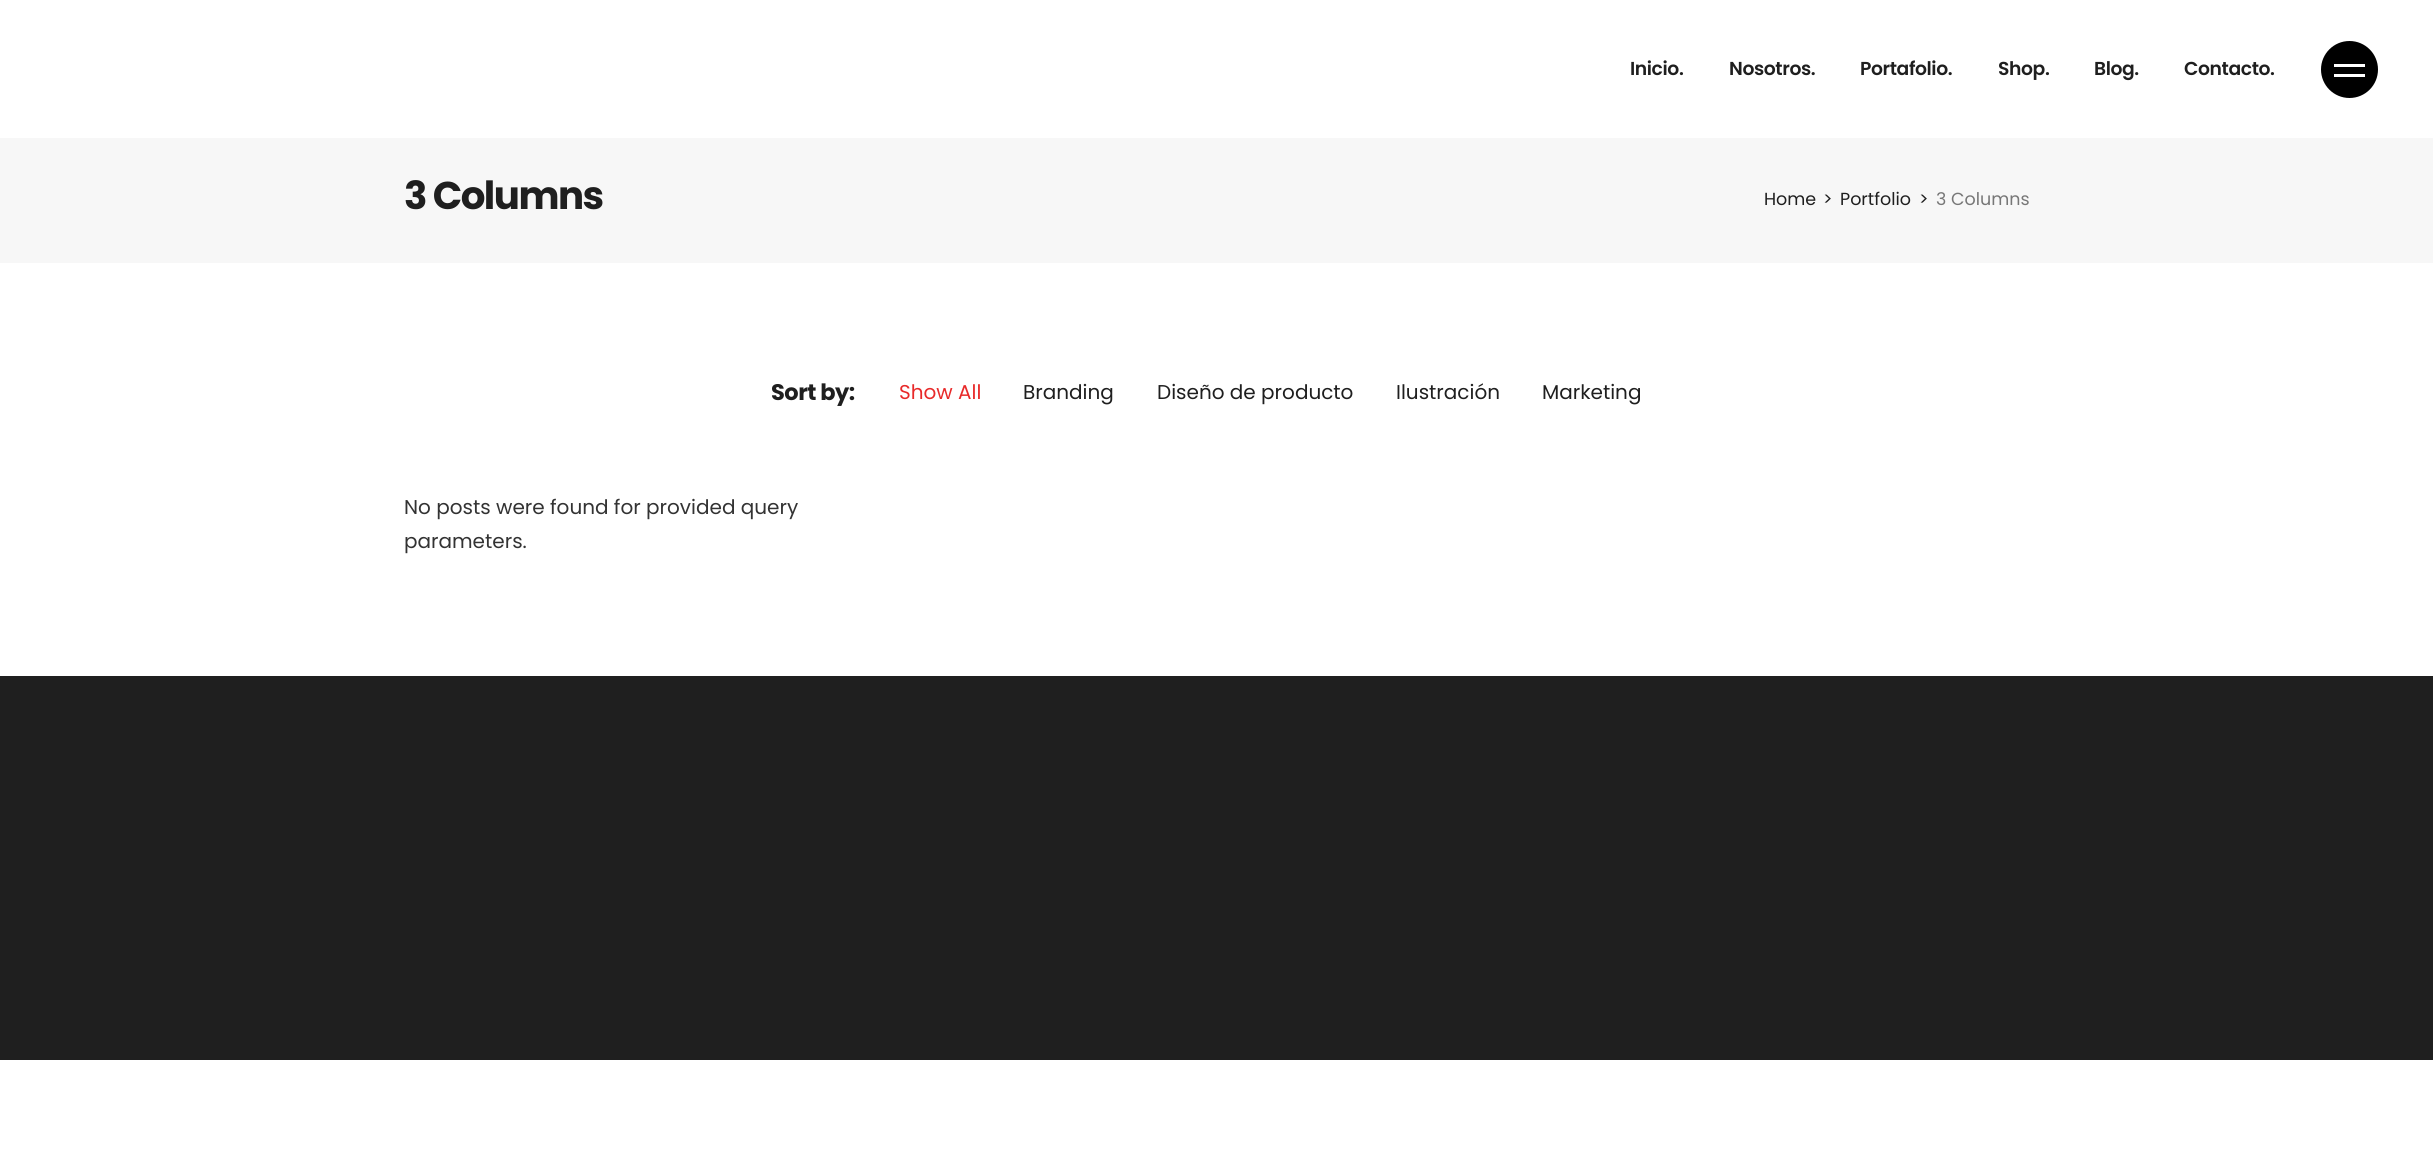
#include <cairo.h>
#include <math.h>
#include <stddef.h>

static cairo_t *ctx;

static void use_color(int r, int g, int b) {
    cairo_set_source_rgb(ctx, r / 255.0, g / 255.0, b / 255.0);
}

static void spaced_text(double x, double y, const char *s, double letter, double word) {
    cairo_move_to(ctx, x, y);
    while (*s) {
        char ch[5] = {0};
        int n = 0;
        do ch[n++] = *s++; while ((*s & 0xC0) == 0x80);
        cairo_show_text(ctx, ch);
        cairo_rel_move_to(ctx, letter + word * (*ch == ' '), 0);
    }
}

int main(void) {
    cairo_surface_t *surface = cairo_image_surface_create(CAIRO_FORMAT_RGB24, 2433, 1158);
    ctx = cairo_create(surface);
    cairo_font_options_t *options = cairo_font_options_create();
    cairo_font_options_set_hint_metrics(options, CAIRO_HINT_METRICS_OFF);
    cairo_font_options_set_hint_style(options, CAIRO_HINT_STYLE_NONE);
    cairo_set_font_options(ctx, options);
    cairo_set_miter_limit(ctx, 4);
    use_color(255, 255, 255);
    cairo_paint(ctx);
    cairo_select_font_face(ctx, "Poppins SemiBold", CAIRO_FONT_SLANT_NORMAL, CAIRO_FONT_WEIGHT_NORMAL);
    cairo_set_font_size(ctx, 18.75);
    use_color(31, 31, 31);
    spaced_text(1630, 75, "Inicio.", -0.4, 0);
    spaced_text(1729, 75, "Nosotros.", -0.4, 0);
    spaced_text(1860, 75, "Portafolio.", -0.4, 0);
    spaced_text(1998, 75, "Shop.", -0.4, 0);
    spaced_text(2094, 75, "Blog.", -0.4, 0);
    spaced_text(2184, 75, "Contacto.", -0.4, 0);
    use_color(0, 0, 0);
    cairo_new_path(ctx);
    cairo_arc(ctx, 2349.5, 69.5, 28.5, 0, 2 * M_PI);
    cairo_fill(ctx);
    use_color(255, 255, 255);
    cairo_rectangle(ctx, 2334, 64, 31, 3);
    cairo_fill(ctx);
    cairo_rectangle(ctx, 2334, 74, 31, 3);
    cairo_fill(ctx);
    use_color(247, 247, 247);
    cairo_rectangle(ctx, 0, 138, 2433, 125);
    cairo_fill(ctx);
    cairo_select_font_face(ctx, "Poppins", CAIRO_FONT_SLANT_NORMAL, CAIRO_FONT_WEIGHT_BOLD);
    cairo_set_font_size(ctx, 38.75);
    use_color(31, 31, 31);
    spaced_text(404, 209, "3 Columns", -1.5, 0);
    cairo_select_font_face(ctx, "Poppins", CAIRO_FONT_SLANT_NORMAL, CAIRO_FONT_WEIGHT_NORMAL);
    cairo_set_font_size(ctx, 17.5);
    cairo_move_to(ctx, 1764, 205);
    cairo_show_text(ctx, "Home");
    cairo_move_to(ctx, 1823, 205);
    cairo_show_text(ctx, ">");
    cairo_move_to(ctx, 1840, 205);
    cairo_show_text(ctx, "Portfolio");
    cairo_move_to(ctx, 1919, 205);
    cairo_show_text(ctx, ">");
    use_color(119, 119, 119);
    cairo_move_to(ctx, 1936, 205);
    cairo_show_text(ctx, "3 Columns");
    cairo_select_font_face(ctx, "Poppins", CAIRO_FONT_SLANT_NORMAL, CAIRO_FONT_WEIGHT_BOLD);
    cairo_set_font_size(ctx, 22.5);
    use_color(31, 31, 31);
    spaced_text(771, 400, "Sort by:", -0.5, 0);
    cairo_select_font_face(ctx, "Poppins", CAIRO_FONT_SLANT_NORMAL, CAIRO_FONT_WEIGHT_NORMAL);
    cairo_set_font_size(ctx, 20);
    use_color(232, 42, 42);
    cairo_move_to(ctx, 899, 399);
    cairo_show_text(ctx, "Show All");
    use_color(31, 31, 31);
    cairo_move_to(ctx, 1023, 399);
    cairo_show_text(ctx, "Branding");
    cairo_move_to(ctx, 1157, 399);
    cairo_show_text(ctx, "Diseño de producto");
    cairo_move_to(ctx, 1396, 399);
    cairo_show_text(ctx, "Ilustración");
    cairo_move_to(ctx, 1542, 399);
    cairo_show_text(ctx, "Marketing");
    use_color(51, 51, 51);
    cairo_move_to(ctx, 404, 514);
    cairo_show_text(ctx, "No posts were found for provided query");
    cairo_move_to(ctx, 404, 548);
    cairo_show_text(ctx, "parameters.");
    use_color(31, 31, 31);
    cairo_rectangle(ctx, 0, 676, 2433, 384);
    cairo_fill(ctx);
    cairo_surface_write_to_png(surface, "result.png");
    cairo_font_options_destroy(options);
    cairo_destroy(ctx);
    cairo_surface_destroy(surface);
    return 0;
}
